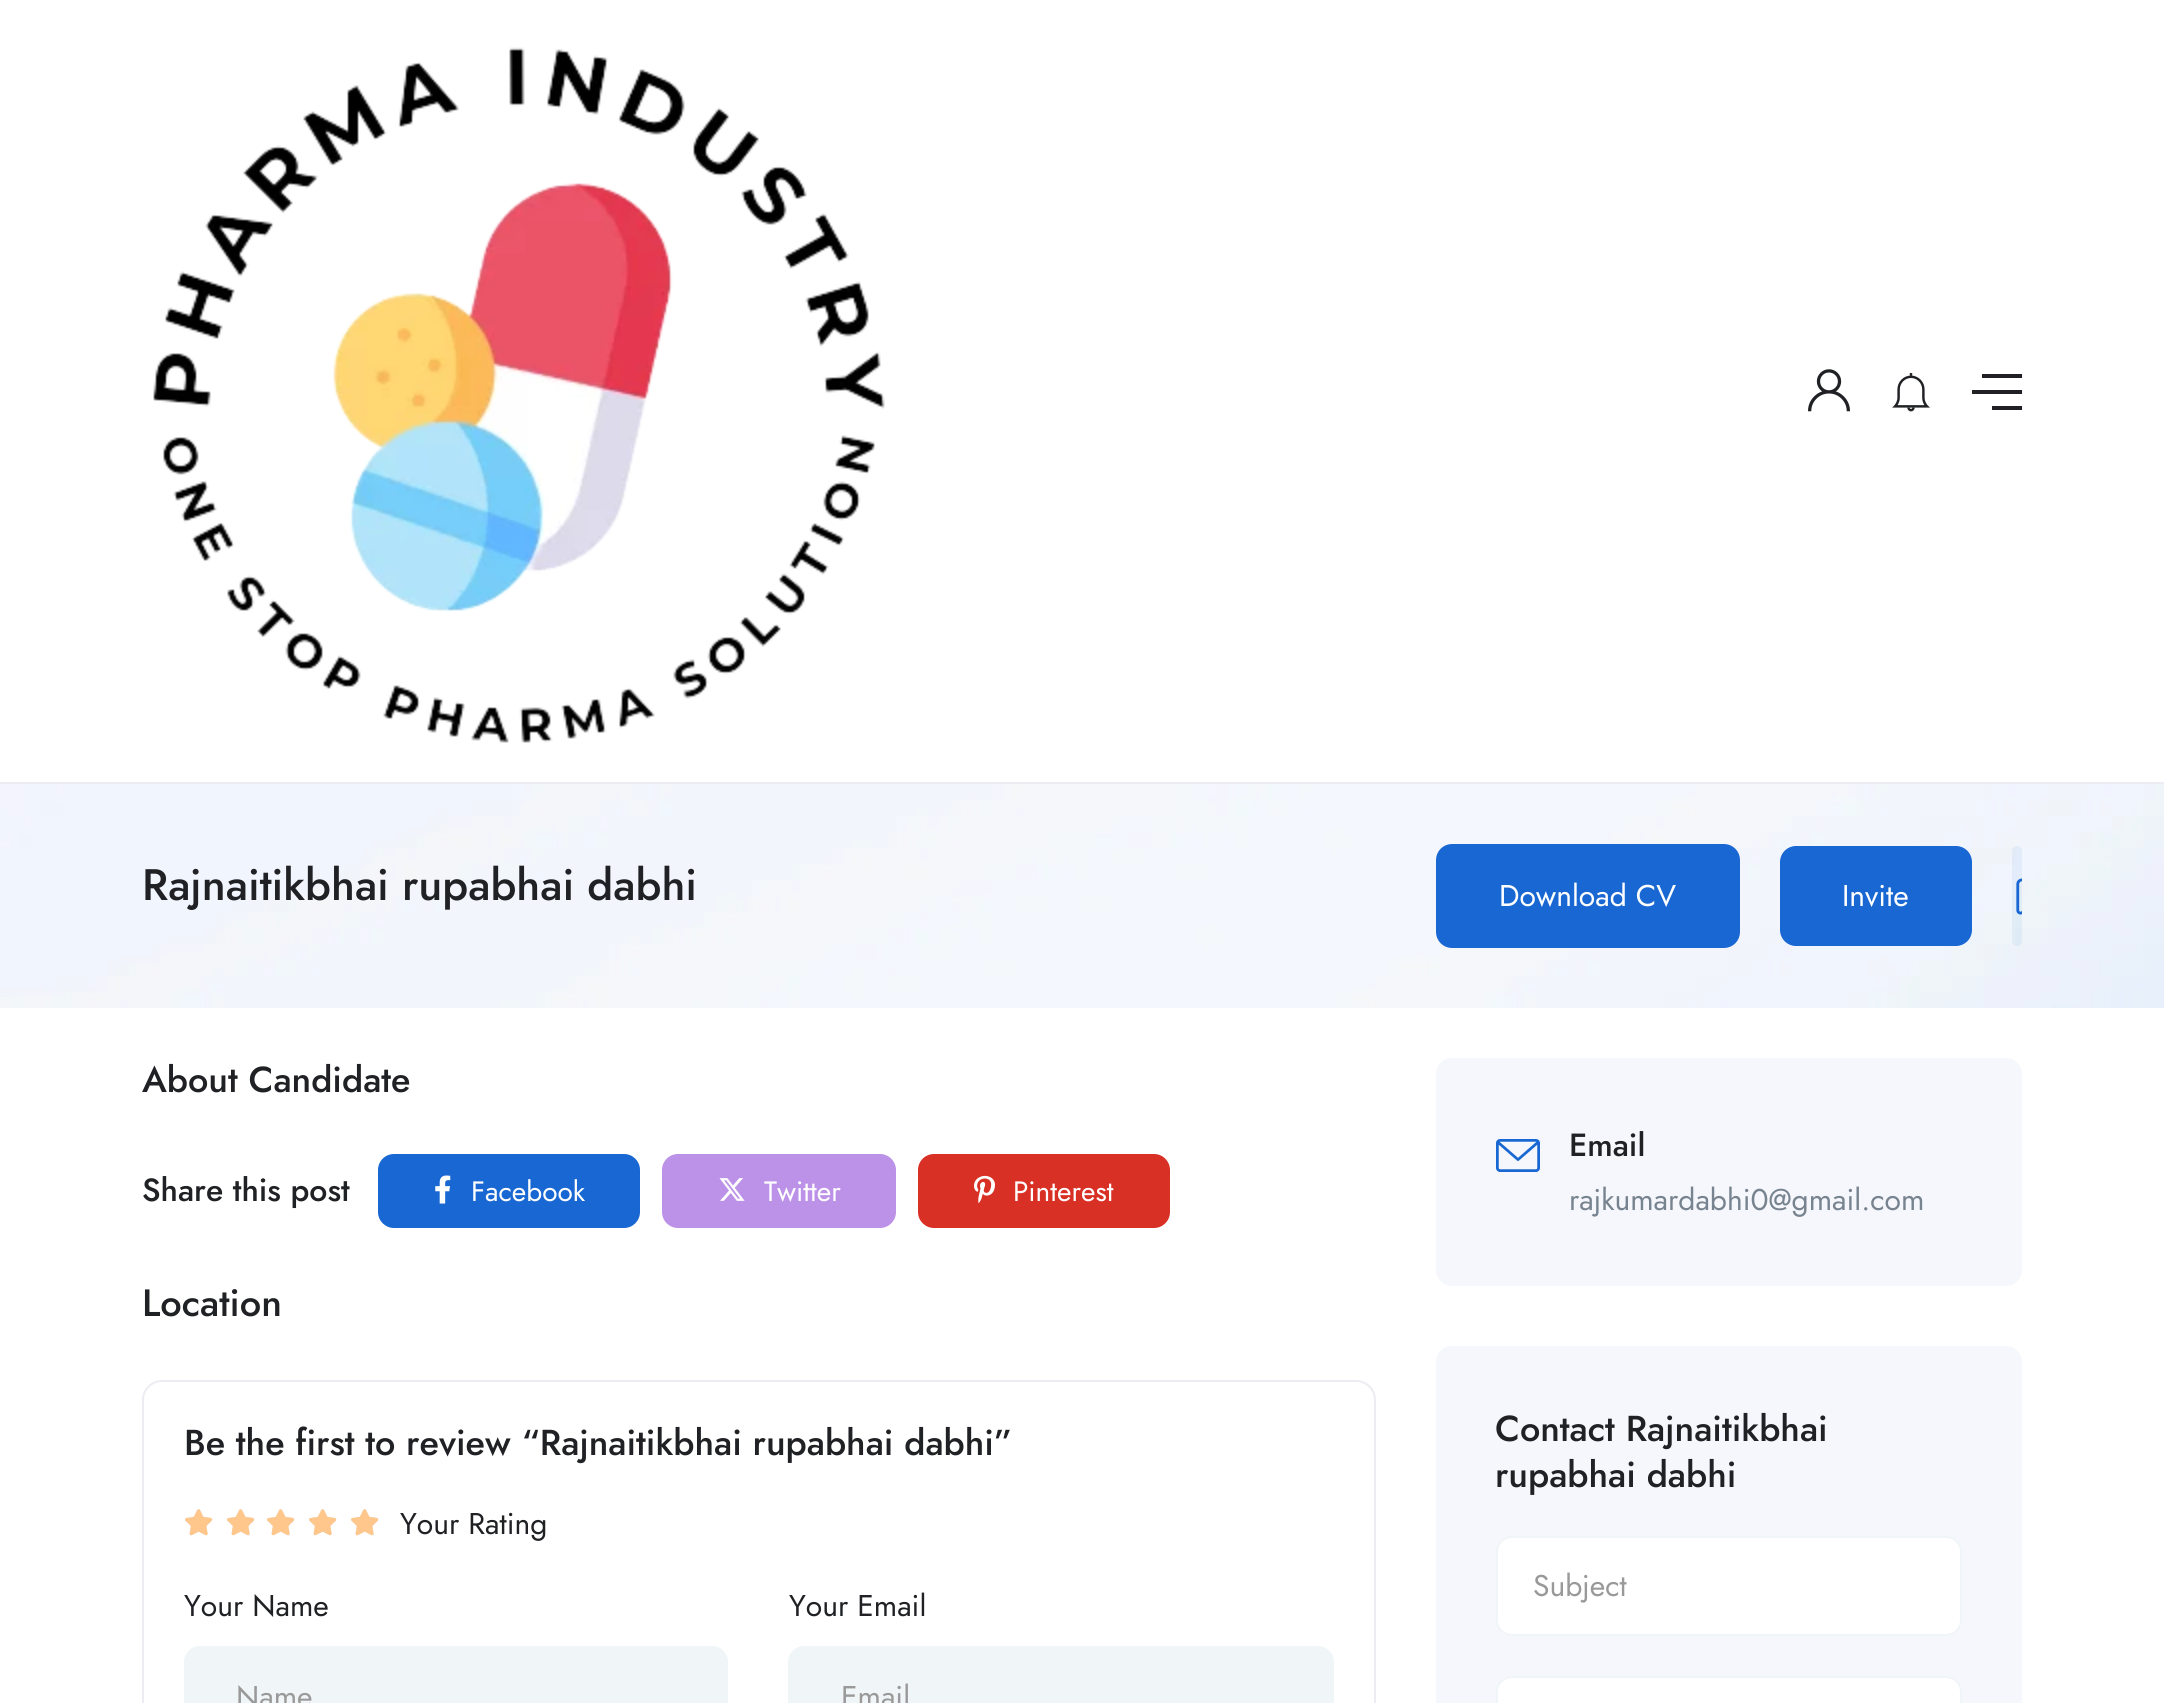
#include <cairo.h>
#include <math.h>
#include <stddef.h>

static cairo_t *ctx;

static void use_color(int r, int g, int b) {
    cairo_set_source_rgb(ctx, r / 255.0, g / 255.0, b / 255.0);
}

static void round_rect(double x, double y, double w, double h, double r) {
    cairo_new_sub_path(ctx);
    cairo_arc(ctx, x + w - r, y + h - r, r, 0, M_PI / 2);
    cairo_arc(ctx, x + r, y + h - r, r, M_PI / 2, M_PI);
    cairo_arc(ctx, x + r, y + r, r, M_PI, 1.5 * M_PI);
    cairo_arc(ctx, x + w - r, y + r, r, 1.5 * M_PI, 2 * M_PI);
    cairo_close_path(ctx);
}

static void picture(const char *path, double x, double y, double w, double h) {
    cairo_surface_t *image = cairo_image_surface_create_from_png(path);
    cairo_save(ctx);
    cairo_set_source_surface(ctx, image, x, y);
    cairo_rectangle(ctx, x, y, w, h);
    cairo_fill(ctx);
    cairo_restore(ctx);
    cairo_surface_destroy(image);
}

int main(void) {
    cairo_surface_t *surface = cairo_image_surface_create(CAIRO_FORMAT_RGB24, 2164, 1703);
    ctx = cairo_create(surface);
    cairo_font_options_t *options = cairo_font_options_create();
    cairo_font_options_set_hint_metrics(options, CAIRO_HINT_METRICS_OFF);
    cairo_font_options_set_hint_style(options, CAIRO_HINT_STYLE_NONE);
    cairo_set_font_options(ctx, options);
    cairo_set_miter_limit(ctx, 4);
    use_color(255, 255, 255);
    cairo_paint(ctx);
    use_color(236, 237, 242);
    cairo_rectangle(ctx, 0, 782, 2164, 2);
    cairo_fill(ctx);
    picture("img1.png", 153, 47, 732, 696);
    picture("img2.png", 1808, 369, 42, 43);
    picture("img3.png", 1892, 373, 38, 39);
    use_color(32, 33, 36);
    cairo_rectangle(ctx, 1982, 374, 40, 4);
    cairo_fill(ctx);
    cairo_rectangle(ctx, 1972, 390, 50, 4);
    cairo_fill(ctx);
    cairo_rectangle(ctx, 1992, 406, 30, 4);
    cairo_fill(ctx);
    picture("img4.png", 0, 784, 2164, 224);
    cairo_select_font_face(ctx, "Jost Medium", CAIRO_FONT_SLANT_NORMAL, CAIRO_FONT_WEIGHT_NORMAL);
    cairo_set_font_size(ctx, 44);
    cairo_move_to(ctx, 142, 900);
    cairo_show_text(ctx, "Rajnaitikbhai rupabhai dabhi");
    use_color(25, 103, 210);
    round_rect(1438, 846, 300, 100, 14);
    cairo_fill_preserve(ctx);
    cairo_set_line_width(ctx, 4);
    cairo_stroke(ctx);
    cairo_select_font_face(ctx, "Jost", CAIRO_FONT_SLANT_NORMAL, CAIRO_FONT_WEIGHT_NORMAL);
    cairo_set_font_size(ctx, 30);
    use_color(255, 255, 255);
    cairo_move_to(ctx, 1499, 906);
    cairo_show_text(ctx, "Download CV");
    use_color(25, 103, 210);
    round_rect(1781, 847, 190, 98, 15);
    cairo_fill_preserve(ctx);
    cairo_set_line_width(ctx, 2);
    cairo_stroke(ctx);
    use_color(255, 255, 255);
    cairo_move_to(ctx, 1842, 906);
    cairo_show_text(ctx, "Invite");
    cairo_set_source_rgba(ctx, 0.098, 0.404, 0.824, 0.07);
    round_rect(2012, 846, 10, 100, 5);
    cairo_fill(ctx);
    picture("img5.png", 2016, 878, 6, 37);
    cairo_select_font_face(ctx, "Jost Medium", CAIRO_FONT_SLANT_NORMAL, CAIRO_FONT_WEIGHT_NORMAL);
    cairo_set_font_size(ctx, 36);
    use_color(32, 33, 36);
    cairo_move_to(ctx, 142, 1092);
    cairo_show_text(ctx, "About Candidate");
    cairo_set_font_size(ctx, 32);
    cairo_move_to(ctx, 142, 1201);
    cairo_show_text(ctx, "Share this post");
    use_color(25, 103, 210);
    round_rect(378, 1154, 262, 74, 16);
    cairo_fill(ctx);
    picture("img6.png", 435, 1175, 16, 29);
    cairo_select_font_face(ctx, "Jost", CAIRO_FONT_SLANT_NORMAL, CAIRO_FONT_WEIGHT_NORMAL);
    cairo_set_font_size(ctx, 28);
    use_color(255, 255, 255);
    cairo_move_to(ctx, 471, 1201);
    cairo_show_text(ctx, "Facebook");
    use_color(188, 145, 232);
    round_rect(662, 1154, 234, 74, 16);
    cairo_fill(ctx);
    picture("img7.png", 719, 1178, 26, 23);
    use_color(255, 255, 255);
    cairo_move_to(ctx, 764, 1201);
    cairo_show_text(ctx, "Twitter");
    use_color(217, 48, 37);
    round_rect(918, 1154, 252, 74, 16);
    cairo_fill(ctx);
    picture("img8.png", 974, 1175, 21, 29);
    use_color(255, 255, 255);
    cairo_move_to(ctx, 1013, 1201);
    cairo_show_text(ctx, "Pinterest");
    cairo_select_font_face(ctx, "Jost Medium", CAIRO_FONT_SLANT_NORMAL, CAIRO_FONT_WEIGHT_NORMAL);
    cairo_set_font_size(ctx, 38);
    use_color(32, 33, 36);
    cairo_move_to(ctx, 142, 1316);
    cairo_show_text(ctx, "Location");
    round_rect(143, 1381, 1232, 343, 19);
    use_color(236, 237, 242);
    cairo_stroke(ctx);
    cairo_set_font_size(ctx, 36);
    use_color(32, 33, 36);
    cairo_move_to(ctx, 184, 1455);
    cairo_show_text(ctx, "Be the first to review “Rajnaitikbhai rupabhai dabhi”");
    picture("img9.png", 185, 1509, 28, 27);
    picture("img9.png", 227, 1509, 28, 27);
    picture("img9.png", 267, 1509, 28, 27);
    picture("img9.png", 309, 1509, 28, 27);
    picture("img9.png", 351, 1509, 28, 27);
    picture("img10.png", 185, 1509, 28, 27);
    picture("img10.png", 227, 1509, 28, 27);
    picture("img10.png", 267, 1509, 28, 27);
    picture("img10.png", 309, 1509, 28, 27);
    picture("img10.png", 351, 1509, 28, 27);
    cairo_select_font_face(ctx, "Jost", CAIRO_FONT_SLANT_NORMAL, CAIRO_FONT_WEIGHT_NORMAL);
    cairo_set_font_size(ctx, 30);
    cairo_move_to(ctx, 400, 1534);
    cairo_show_text(ctx, "Your Rating");
    cairo_move_to(ctx, 184, 1616);
    cairo_show_text(ctx, "Your Name");
    use_color(240, 245, 247);
    round_rect(185, 1647, 542, 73, 15);
    cairo_fill_preserve(ctx);
    cairo_stroke(ctx);
    use_color(153, 153, 153);
    cairo_move_to(ctx, 236, 1707);
    cairo_show_text(ctx, "Name");
    use_color(32, 33, 36);
    cairo_move_to(ctx, 789, 1616);
    cairo_show_text(ctx, "Your Email");
    use_color(240, 245, 247);
    round_rect(789, 1647, 544, 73, 15);
    cairo_fill_preserve(ctx);
    cairo_stroke(ctx);
    use_color(153, 153, 153);
    cairo_move_to(ctx, 841, 1707);
    cairo_show_text(ctx, "Email");
    use_color(245, 247, 252);
    round_rect(1436, 1058, 586, 228, 16);
    cairo_fill(ctx);
    picture("img11.png", 1496, 1139, 44, 33);
    cairo_select_font_face(ctx, "Jost Medium", CAIRO_FONT_SLANT_NORMAL, CAIRO_FONT_WEIGHT_NORMAL);
    cairo_set_font_size(ctx, 32);
    use_color(32, 33, 36);
    cairo_move_to(ctx, 1569, 1156);
    cairo_show_text(ctx, "Email");
    cairo_select_font_face(ctx, "Jost", CAIRO_FONT_SLANT_NORMAL, CAIRO_FONT_WEIGHT_NORMAL);
    cairo_set_font_size(ctx, 30);
    use_color(119, 131, 143);
    cairo_move_to(ctx, 1569, 1210);
    cairo_show_text(ctx, "rajkumardabhi0@gmail.com");
    use_color(245, 247, 252);
    round_rect(1436, 1346, 586, 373, 16);
    cairo_fill(ctx);
    cairo_select_font_face(ctx, "Jost Medium", CAIRO_FONT_SLANT_NORMAL, CAIRO_FONT_WEIGHT_NORMAL);
    cairo_set_font_size(ctx, 36);
    use_color(32, 33, 36);
    cairo_move_to(ctx, 1495, 1441);
    cairo_show_text(ctx, "Contact Rajnaitikbhai");
    cairo_move_to(ctx, 1495, 1487);
    cairo_show_text(ctx, "rupabhai dabhi");
    use_color(255, 255, 255);
    round_rect(1497, 1537, 464, 98, 15);
    cairo_fill_preserve(ctx);
    use_color(240, 245, 247);
    cairo_stroke(ctx);
    cairo_select_font_face(ctx, "Jost", CAIRO_FONT_SLANT_NORMAL, CAIRO_FONT_WEIGHT_NORMAL);
    cairo_set_font_size(ctx, 30);
    use_color(153, 153, 153);
    cairo_move_to(ctx, 1533, 1596);
    cairo_show_text(ctx, "Subject");
    use_color(255, 255, 255);
    round_rect(1497, 1677, 464, 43, 15);
    cairo_fill_preserve(ctx);
    use_color(240, 245, 247);
    cairo_stroke(ctx);
    cairo_surface_write_to_png(surface, "result.png");
    cairo_font_options_destroy(options);
    cairo_destroy(ctx);
    cairo_surface_destroy(surface);
    return 0;
}
